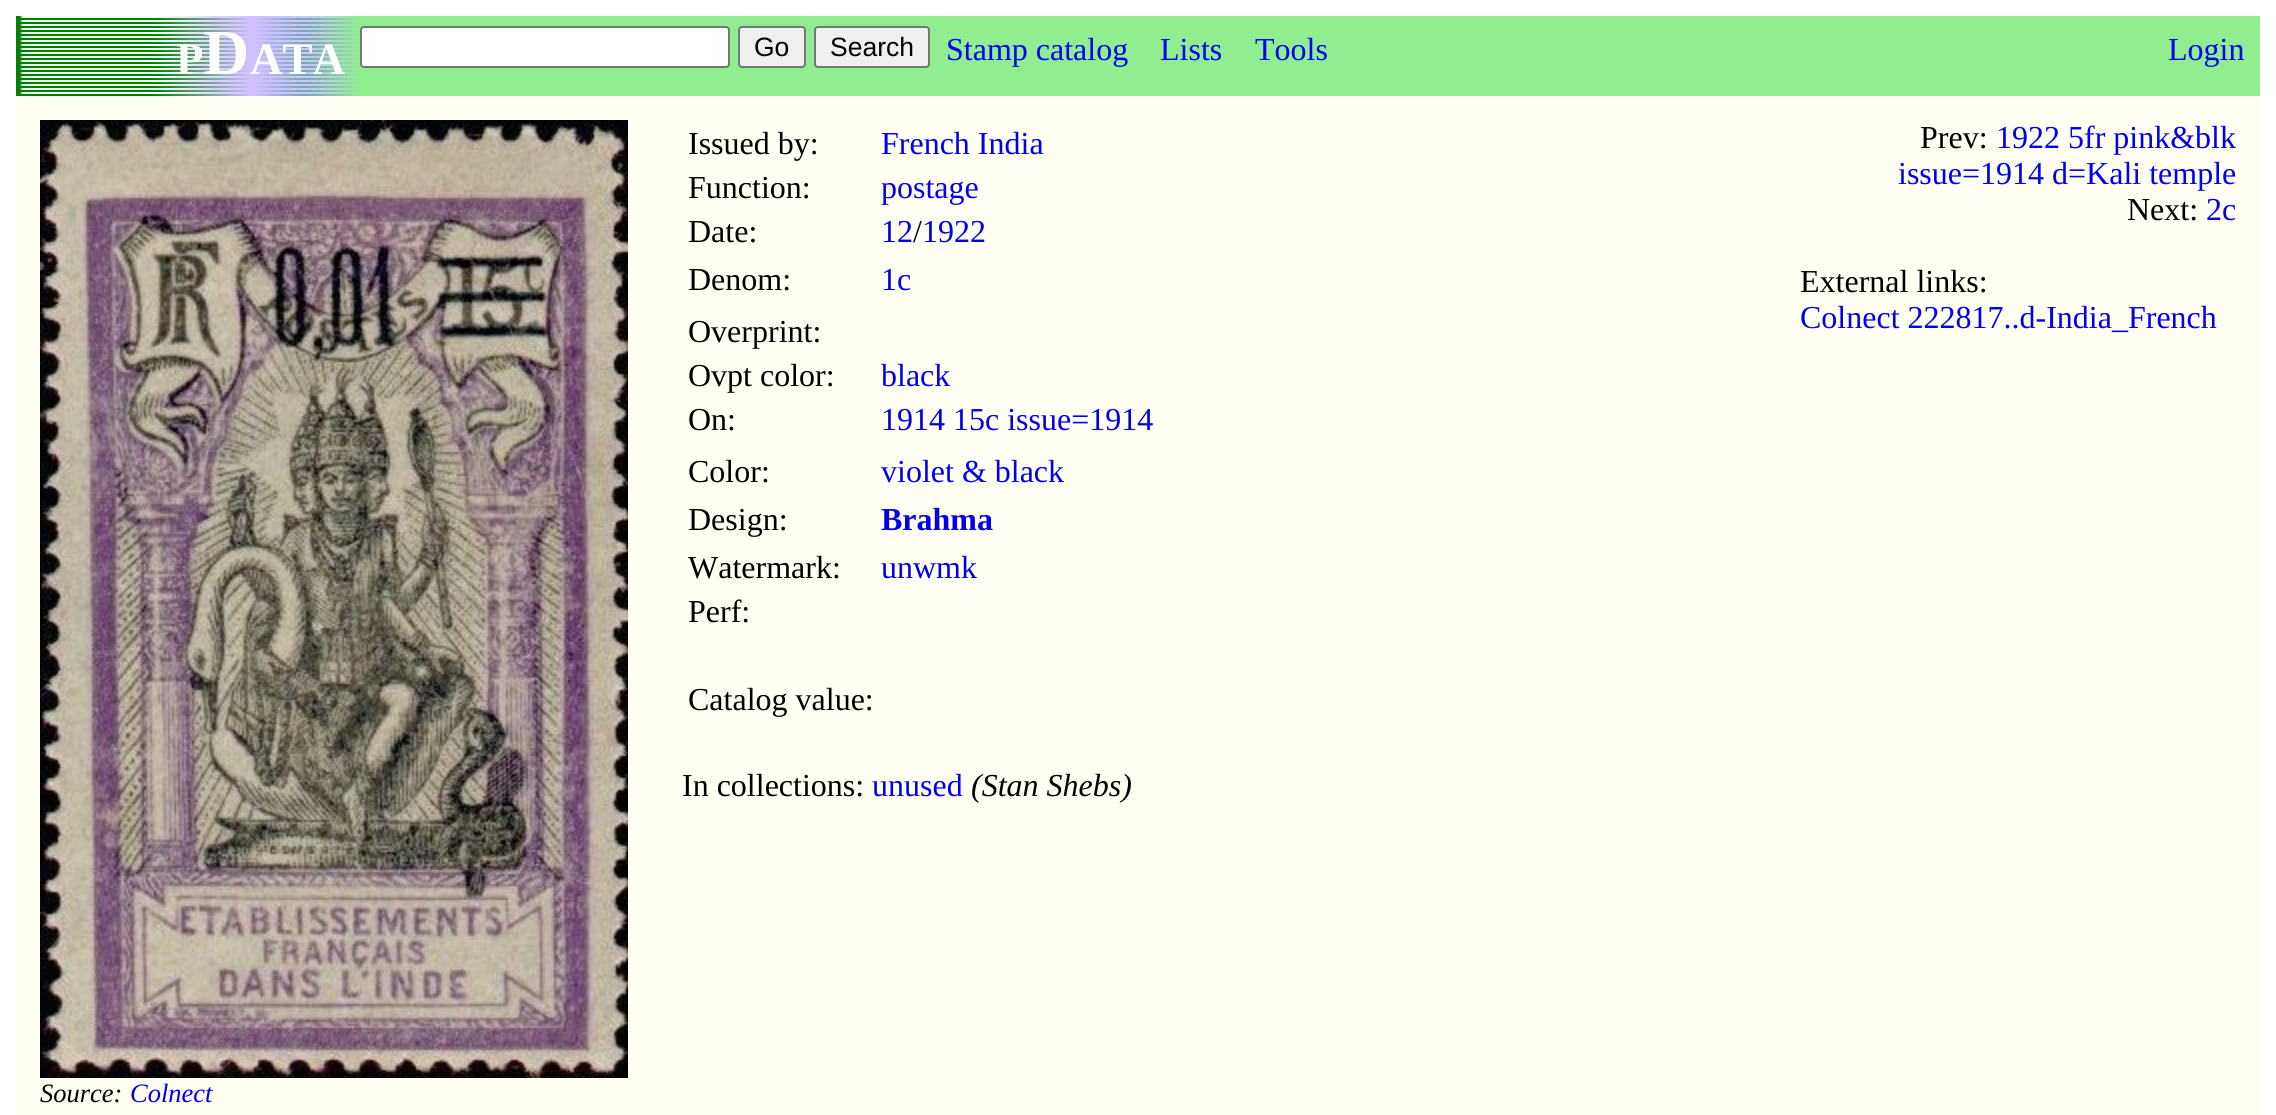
#include <cairo.h>
#include <math.h>
#include <stddef.h>

static cairo_t *ctx;

static void use_color(int r, int g, int b) {
    cairo_set_source_rgb(ctx, r / 255.0, g / 255.0, b / 255.0);
}

static void round_rect(double x, double y, double w, double h, double r) {
    cairo_new_sub_path(ctx);
    cairo_arc(ctx, x + w - r, y + h - r, r, 0, M_PI / 2);
    cairo_arc(ctx, x + r, y + h - r, r, M_PI / 2, M_PI);
    cairo_arc(ctx, x + r, y + r, r, M_PI, 1.5 * M_PI);
    cairo_arc(ctx, x + w - r, y + r, r, 1.5 * M_PI, 2 * M_PI);
    cairo_close_path(ctx);
}

static void picture(const char *path, double x, double y, double w, double h) {
    cairo_surface_t *image = cairo_image_surface_create_from_png(path);
    cairo_save(ctx);
    cairo_set_source_surface(ctx, image, x, y);
    cairo_rectangle(ctx, x, y, w, h);
    cairo_fill(ctx);
    cairo_restore(ctx);
    cairo_surface_destroy(image);
}

int main(void) {
    cairo_surface_t *surface = cairo_image_surface_create(CAIRO_FORMAT_RGB24, 2276, 1115);
    ctx = cairo_create(surface);
    cairo_font_options_t *options = cairo_font_options_create();
    cairo_font_options_set_hint_metrics(options, CAIRO_HINT_METRICS_OFF);
    cairo_font_options_set_hint_style(options, CAIRO_HINT_STYLE_NONE);
    cairo_set_font_options(ctx, options);
    cairo_set_miter_limit(ctx, 4);
    use_color(255, 255, 255);
    cairo_paint(ctx);
    use_color(144, 238, 144);
    cairo_rectangle(ctx, 360, 16, 1900, 80);
    cairo_fill(ctx);
    picture("img1.png", 16, 16, 344, 80);
    cairo_select_font_face(ctx, "Liberation Serif", CAIRO_FONT_SLANT_NORMAL, CAIRO_FONT_WEIGHT_BOLD);
    cairo_set_font_size(ctx, 45);
    use_color(252, 255, 252);
    cairo_move_to(ctx, 176, 74);
    cairo_show_text(ctx, "P");
    cairo_set_font_size(ctx, 64);
    cairo_move_to(ctx, 203, 74);
    cairo_show_text(ctx, "D");
    cairo_set_font_size(ctx, 45);
    cairo_move_to(ctx, 250, 74);
    cairo_show_text(ctx, "ATA");
    use_color(255, 255, 255);
    round_rect(361, 27, 368, 40, 3);
    cairo_fill_preserve(ctx);
    use_color(118, 118, 118);
    cairo_stroke(ctx);
    use_color(239, 239, 239);
    round_rect(739, 27, 66, 40, 3);
    cairo_fill_preserve(ctx);
    use_color(118, 118, 118);
    cairo_stroke(ctx);
    cairo_select_font_face(ctx, "Liberation Sans", CAIRO_FONT_SLANT_NORMAL, CAIRO_FONT_WEIGHT_NORMAL);
    cairo_set_font_size(ctx, 26.5);
    use_color(0, 0, 0);
    cairo_move_to(ctx, 754, 56);
    cairo_show_text(ctx, "Go");
    use_color(239, 239, 239);
    round_rect(815, 27, 114, 40, 3);
    cairo_fill_preserve(ctx);
    use_color(118, 118, 118);
    cairo_stroke(ctx);
    use_color(0, 0, 0);
    cairo_move_to(ctx, 830, 56);
    cairo_show_text(ctx, "Search");
    cairo_select_font_face(ctx, "Liberation Serif", CAIRO_FONT_SLANT_NORMAL, CAIRO_FONT_WEIGHT_NORMAL);
    cairo_set_font_size(ctx, 32);
    use_color(0, 0, 238);
    cairo_move_to(ctx, 946, 60);
    cairo_show_text(ctx, "Stamp catalog");
    cairo_move_to(ctx, 1160, 60);
    cairo_show_text(ctx, "Lists");
    cairo_move_to(ctx, 1255, 60);
    cairo_show_text(ctx, "Tools");
    cairo_move_to(ctx, 2168, 60);
    cairo_show_text(ctx, "Login");
    use_color(255, 255, 244);
    cairo_rectangle(ctx, 16, 96, 2244, 1019);
    cairo_fill(ctx);
    use_color(0, 0, 0);
    cairo_move_to(ctx, 688, 154);
    cairo_show_text(ctx, "Issued by:");
    use_color(0, 0, 238);
    cairo_move_to(ctx, 881, 154);
    cairo_show_text(ctx, "French India");
    use_color(0, 0, 0);
    cairo_move_to(ctx, 688, 198);
    cairo_show_text(ctx, "Function:");
    use_color(0, 0, 238);
    cairo_move_to(ctx, 881, 198);
    cairo_show_text(ctx, "postage");
    use_color(0, 0, 0);
    cairo_move_to(ctx, 688, 242);
    cairo_show_text(ctx, "Date:");
    use_color(0, 0, 238);
    cairo_move_to(ctx, 881, 242);
    cairo_show_text(ctx, "12");
    use_color(0, 0, 0);
    cairo_move_to(ctx, 913, 242);
    cairo_show_text(ctx, "/");
    use_color(0, 0, 238);
    cairo_move_to(ctx, 922, 242);
    cairo_show_text(ctx, "1922");
    use_color(0, 0, 0);
    cairo_move_to(ctx, 688, 290);
    cairo_show_text(ctx, "Denom:");
    use_color(0, 0, 238);
    cairo_move_to(ctx, 881, 290);
    cairo_show_text(ctx, "1c");
    use_color(0, 0, 0);
    cairo_move_to(ctx, 688, 342);
    cairo_show_text(ctx, "Overprint:");
    cairo_move_to(ctx, 688, 386);
    cairo_show_text(ctx, "Ovpt color:");
    use_color(0, 0, 238);
    cairo_move_to(ctx, 881, 386);
    cairo_show_text(ctx, "black");
    use_color(0, 0, 0);
    cairo_move_to(ctx, 688, 430);
    cairo_show_text(ctx, "On:");
    use_color(0, 0, 238);
    cairo_move_to(ctx, 881, 430);
    cairo_show_text(ctx, "1914 15c issue=1914");
    use_color(0, 0, 0);
    cairo_move_to(ctx, 688, 482);
    cairo_show_text(ctx, "Color:");
    use_color(0, 0, 238);
    cairo_move_to(ctx, 881, 482);
    cairo_show_text(ctx, "violet & black");
    use_color(0, 0, 0);
    cairo_move_to(ctx, 688, 530);
    cairo_show_text(ctx, "Design:");
    cairo_select_font_face(ctx, "Liberation Serif", CAIRO_FONT_SLANT_NORMAL, CAIRO_FONT_WEIGHT_BOLD);
    use_color(0, 0, 238);
    cairo_move_to(ctx, 881, 530);
    cairo_show_text(ctx, "Brahma");
    cairo_select_font_face(ctx, "Liberation Serif", CAIRO_FONT_SLANT_NORMAL, CAIRO_FONT_WEIGHT_NORMAL);
    use_color(0, 0, 0);
    cairo_move_to(ctx, 688, 578);
    cairo_show_text(ctx, "Watermark:");
    use_color(0, 0, 238);
    cairo_move_to(ctx, 881, 578);
    cairo_show_text(ctx, "unwmk");
    use_color(0, 0, 0);
    cairo_move_to(ctx, 688, 622);
    cairo_show_text(ctx, "Perf:");
    cairo_move_to(ctx, 688, 710);
    cairo_show_text(ctx, "Catalog value:");
    cairo_move_to(ctx, 682, 796);
    cairo_show_text(ctx, "In collections:");
    use_color(0, 0, 238);
    cairo_move_to(ctx, 872, 796);
    cairo_show_text(ctx, "unused");
    cairo_select_font_face(ctx, "Liberation Serif", CAIRO_FONT_SLANT_ITALIC, CAIRO_FONT_WEIGHT_NORMAL);
    use_color(0, 0, 0);
    cairo_move_to(ctx, 971, 796);
    cairo_show_text(ctx, "(Stan Shebs)");
    cairo_select_font_face(ctx, "Liberation Serif", CAIRO_FONT_SLANT_NORMAL, CAIRO_FONT_WEIGHT_NORMAL);
    cairo_move_to(ctx, 1920, 148);
    cairo_show_text(ctx, "Prev:");
    use_color(0, 0, 238);
    cairo_move_to(ctx, 1996, 148);
    cairo_show_text(ctx, "1922 5fr pink&blk");
    cairo_move_to(ctx, 1898, 184);
    cairo_show_text(ctx, "issue=1914 d=Kali temple");
    use_color(0, 0, 0);
    cairo_move_to(ctx, 2127, 220);
    cairo_show_text(ctx, "Next:");
    use_color(0, 0, 238);
    cairo_move_to(ctx, 2206, 220);
    cairo_show_text(ctx, "2c");
    use_color(0, 0, 0);
    cairo_move_to(ctx, 1800, 292);
    cairo_show_text(ctx, "External links:");
    use_color(0, 0, 238);
    cairo_move_to(ctx, 1800, 328);
    cairo_show_text(ctx, "Colnect 222817..d-India_French");
    picture("img2.png", 40, 120, 588, 958);
    cairo_select_font_face(ctx, "Liberation Serif", CAIRO_FONT_SLANT_ITALIC, CAIRO_FONT_WEIGHT_NORMAL);
    cairo_set_font_size(ctx, 26.5);
    use_color(0, 0, 0);
    cairo_move_to(ctx, 40, 1102);
    cairo_show_text(ctx, "Source:");
    use_color(0, 0, 238);
    cairo_move_to(ctx, 130, 1102);
    cairo_show_text(ctx, "Colnect");
    cairo_surface_write_to_png(surface, "result.png");
    cairo_font_options_destroy(options);
    cairo_destroy(ctx);
    cairo_surface_destroy(surface);
    return 0;
}
